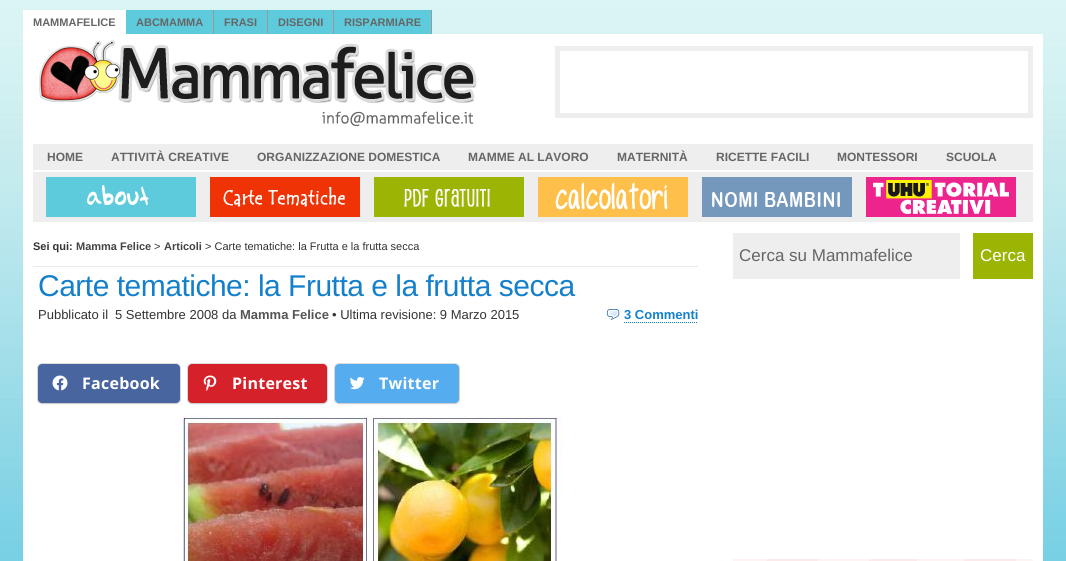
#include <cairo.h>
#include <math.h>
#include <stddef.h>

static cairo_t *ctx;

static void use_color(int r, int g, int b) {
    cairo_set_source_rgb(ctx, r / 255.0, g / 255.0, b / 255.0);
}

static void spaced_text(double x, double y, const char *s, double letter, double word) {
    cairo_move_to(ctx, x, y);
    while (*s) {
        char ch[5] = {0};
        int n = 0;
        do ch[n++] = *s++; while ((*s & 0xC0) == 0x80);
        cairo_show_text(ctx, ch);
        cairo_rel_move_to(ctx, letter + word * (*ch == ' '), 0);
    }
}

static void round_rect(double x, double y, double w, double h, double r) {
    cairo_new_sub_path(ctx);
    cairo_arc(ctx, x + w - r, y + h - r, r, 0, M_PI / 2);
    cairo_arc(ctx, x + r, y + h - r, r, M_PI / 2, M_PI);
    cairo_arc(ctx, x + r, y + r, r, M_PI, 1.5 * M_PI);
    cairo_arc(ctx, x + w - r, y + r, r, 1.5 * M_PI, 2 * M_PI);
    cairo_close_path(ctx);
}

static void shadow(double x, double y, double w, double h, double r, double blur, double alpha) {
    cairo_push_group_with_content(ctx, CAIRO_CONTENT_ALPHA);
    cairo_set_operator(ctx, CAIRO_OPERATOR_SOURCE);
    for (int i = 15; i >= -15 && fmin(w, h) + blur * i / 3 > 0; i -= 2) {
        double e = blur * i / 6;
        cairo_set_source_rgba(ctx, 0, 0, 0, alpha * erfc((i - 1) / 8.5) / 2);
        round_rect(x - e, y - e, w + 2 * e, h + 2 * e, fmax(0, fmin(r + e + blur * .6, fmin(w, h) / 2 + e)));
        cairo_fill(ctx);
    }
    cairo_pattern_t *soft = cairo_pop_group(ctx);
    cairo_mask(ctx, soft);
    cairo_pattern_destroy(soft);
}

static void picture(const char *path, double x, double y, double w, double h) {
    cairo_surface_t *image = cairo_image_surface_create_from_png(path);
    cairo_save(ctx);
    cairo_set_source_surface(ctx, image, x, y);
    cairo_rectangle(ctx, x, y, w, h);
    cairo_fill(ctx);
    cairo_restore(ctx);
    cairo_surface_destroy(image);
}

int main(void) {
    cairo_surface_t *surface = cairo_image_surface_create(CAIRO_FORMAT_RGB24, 1066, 561);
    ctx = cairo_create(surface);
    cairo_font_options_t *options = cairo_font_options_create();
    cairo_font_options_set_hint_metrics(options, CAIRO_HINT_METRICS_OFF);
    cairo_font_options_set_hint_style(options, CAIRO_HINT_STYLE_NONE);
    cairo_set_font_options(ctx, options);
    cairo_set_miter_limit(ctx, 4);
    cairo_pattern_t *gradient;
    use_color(255, 255, 255);
    cairo_paint(ctx);
    picture("img1.png", 0, 0, 1066, 561);
    use_color(255, 255, 255);
    cairo_rectangle(ctx, 23, 10, 103, 24);
    cairo_fill(ctx);
    cairo_select_font_face(ctx, "Liberation Sans", CAIRO_FONT_SLANT_NORMAL, CAIRO_FONT_WEIGHT_BOLD);
    cairo_set_font_size(ctx, 11);
    use_color(102, 102, 102);
    cairo_move_to(ctx, 33, 26);
    cairo_show_text(ctx, "MAMMAFELICE");
    use_color(94, 203, 221);
    cairo_rectangle(ctx, 126, 10, 87, 24);
    cairo_fill(ctx);
    use_color(153, 153, 153);
    cairo_rectangle(ctx, 213, 10, 1, 24);
    cairo_fill(ctx);
    use_color(102, 102, 102);
    cairo_move_to(ctx, 136, 26);
    cairo_show_text(ctx, "ABCMAMMA");
    use_color(94, 203, 221);
    cairo_rectangle(ctx, 214, 10, 53, 24);
    cairo_fill(ctx);
    use_color(153, 153, 153);
    cairo_rectangle(ctx, 267, 10, 1, 24);
    cairo_fill(ctx);
    use_color(102, 102, 102);
    cairo_move_to(ctx, 224, 26);
    cairo_show_text(ctx, "FRASI");
    use_color(94, 203, 221);
    cairo_rectangle(ctx, 268, 10, 65, 24);
    cairo_fill(ctx);
    use_color(153, 153, 153);
    cairo_rectangle(ctx, 333, 10, 1, 24);
    cairo_fill(ctx);
    use_color(102, 102, 102);
    cairo_move_to(ctx, 278, 26);
    cairo_show_text(ctx, "DISEGNI");
    use_color(94, 203, 221);
    cairo_rectangle(ctx, 334, 10, 97, 24);
    cairo_fill(ctx);
    use_color(153, 153, 153);
    cairo_rectangle(ctx, 431, 10, 1, 24);
    cairo_fill(ctx);
    use_color(102, 102, 102);
    cairo_move_to(ctx, 344, 26);
    cairo_show_text(ctx, "RISPARMIARE");
    use_color(255, 255, 255);
    cairo_rectangle(ctx, 23, 34, 1020, 527);
    cairo_fill(ctx);
    picture("img2.png", 39, 40, 438, 86);
    cairo_rectangle(ctx, 557.5, 48.5, 473, 67);
    use_color(238, 238, 238);
    cairo_set_line_width(ctx, 5);
    cairo_stroke(ctx);
    cairo_rectangle(ctx, 33, 144, 1000, 26);
    cairo_fill(ctx);
    cairo_set_font_size(ctx, 12);
    use_color(102, 102, 102);
    cairo_move_to(ctx, 47, 161);
    cairo_show_text(ctx, "HOME");
    cairo_move_to(ctx, 111, 161);
    cairo_show_text(ctx, "ATTIVITÀ CREATIVE");
    cairo_move_to(ctx, 257, 161);
    cairo_show_text(ctx, "ORGANIZZAZIONE DOMESTICA");
    cairo_move_to(ctx, 468, 161);
    cairo_show_text(ctx, "MAMME AL LAVORO");
    cairo_move_to(ctx, 617, 161);
    cairo_show_text(ctx, "MATERNITÀ");
    cairo_move_to(ctx, 716, 161);
    cairo_show_text(ctx, "RICETTE FACILI");
    cairo_move_to(ctx, 837, 161);
    cairo_show_text(ctx, "MONTESSORI");
    cairo_move_to(ctx, 946, 161);
    cairo_show_text(ctx, "SCUOLA");
    use_color(238, 238, 238);
    cairo_rectangle(ctx, 33, 172, 1000, 50);
    cairo_fill(ctx);
    picture("img3.png", 46, 177, 150, 40);
    picture("img4.png", 210, 177, 150, 40);
    picture("img5.png", 374, 177, 150, 40);
    picture("img6.png", 538, 177, 150, 40);
    picture("img7.png", 702, 177, 150, 40);
    picture("img8.png", 866, 177, 150, 40);
    cairo_set_font_size(ctx, 11);
    use_color(51, 51, 51);
    cairo_move_to(ctx, 33, 250);
    cairo_show_text(ctx, "Sei qui:");
    use_color(68, 68, 68);
    cairo_move_to(ctx, 76, 250);
    cairo_show_text(ctx, "Mamma Felice");
    cairo_select_font_face(ctx, "Liberation Sans", CAIRO_FONT_SLANT_NORMAL, CAIRO_FONT_WEIGHT_NORMAL);
    use_color(51, 51, 51);
    cairo_move_to(ctx, 154, 250);
    cairo_show_text(ctx, ">");
    cairo_select_font_face(ctx, "Liberation Sans", CAIRO_FONT_SLANT_NORMAL, CAIRO_FONT_WEIGHT_BOLD);
    use_color(68, 68, 68);
    cairo_move_to(ctx, 164, 250);
    cairo_show_text(ctx, "Articoli");
    cairo_select_font_face(ctx, "Liberation Sans", CAIRO_FONT_SLANT_NORMAL, CAIRO_FONT_WEIGHT_NORMAL);
    use_color(51, 51, 51);
    cairo_move_to(ctx, 205, 250);
    cairo_show_text(ctx, "> Carte tematiche: la Frutta e la frutta secca");
    use_color(234, 234, 234);
    cairo_rectangle(ctx, 33, 266, 665, 1);
    cairo_fill(ctx);
    cairo_set_font_size(ctx, 30);
    use_color(20, 128, 204);
    spaced_text(38, 296, "Carte tematiche: la Frutta e la frutta secca", -0.5, 0);
    cairo_set_font_size(ctx, 13);
    use_color(51, 51, 51);
    cairo_move_to(ctx, 38, 319);
    cairo_show_text(ctx, "Pubblicato il");
    cairo_move_to(ctx, 115, 319);
    cairo_show_text(ctx, "5 Settembre 2008 da");
    cairo_select_font_face(ctx, "Liberation Sans", CAIRO_FONT_SLANT_NORMAL, CAIRO_FONT_WEIGHT_BOLD);
    use_color(85, 85, 85);
    cairo_move_to(ctx, 240, 319);
    cairo_show_text(ctx, "Mamma Felice");
    cairo_select_font_face(ctx, "Liberation Sans", CAIRO_FONT_SLANT_NORMAL, CAIRO_FONT_WEIGHT_NORMAL);
    use_color(51, 51, 51);
    cairo_move_to(ctx, 332, 319);
    cairo_show_text(ctx, "• Ultima revisione: 9 Marzo 2015");
    picture("img9.png", 606, 309, 14, 11);
    cairo_select_font_face(ctx, "Liberation Sans", CAIRO_FONT_SLANT_NORMAL, CAIRO_FONT_WEIGHT_BOLD);
    use_color(20, 128, 204);
    cairo_move_to(ctx, 624, 319);
    cairo_show_text(ctx, "3 Commenti");
    cairo_new_path(ctx);
    cairo_move_to(ctx, 624, 322.5);
    cairo_line_to(ctx, 698, 322.5);
    cairo_set_line_width(ctx, 1);
    cairo_set_dash(ctx, (double[]){1, 1}, 2, 0);
    cairo_stroke(ctx);
    round_rect(37.5, 363.5, 143, 40, 4.5);
    use_color(224, 224, 224);
    cairo_set_dash(ctx, NULL, 0, 0);
    cairo_stroke(ctx);
    use_color(0, 0, 0);
    shadow(38, 365, 142, 39, 4, 1, 0.12);
    use_color(73, 101, 160);
    round_rect(38, 364, 142, 39, 4);
    cairo_fill(ctx);
    picture("img10.png", 52, 375, 16, 16);
    cairo_select_font_face(ctx, "Open Sans", CAIRO_FONT_SLANT_NORMAL, CAIRO_FONT_WEIGHT_BOLD);
    cairo_set_font_size(ctx, 16);
    use_color(255, 255, 255);
    spaced_text(82, 389, "Facebook", 0.25, 0);
    round_rect(187.5, 363.5, 140, 40, 4.5);
    use_color(224, 224, 224);
    cairo_stroke(ctx);
    use_color(0, 0, 0);
    shadow(188, 365, 139, 39, 4, 1, 0.12);
    use_color(213, 34, 42);
    round_rect(188, 364, 139, 39, 4);
    cairo_fill(ctx);
    picture("img11.png", 203, 375, 14, 16);
    use_color(255, 255, 255);
    spaced_text(232, 389, "Pinterest", 0.25, 0);
    round_rect(334.5, 363.5, 125, 40, 4.5);
    use_color(224, 224, 224);
    cairo_stroke(ctx);
    use_color(0, 0, 0);
    shadow(335, 365, 124, 39, 4, 1, 0.12);
    use_color(85, 172, 238);
    round_rect(335, 364, 124, 39, 4);
    cairo_fill(ctx);
    picture("img12.png", 349, 377, 16, 13);
    use_color(255, 255, 255);
    spaced_text(379, 389, "Twitter", 0.25, 0);
    picture("img13.png", 179, 415, 384, 146);
    use_color(238, 238, 238);
    cairo_rectangle(ctx, 733, 233, 227, 46);
    cairo_fill(ctx);
    cairo_select_font_face(ctx, "Liberation Sans", CAIRO_FONT_SLANT_NORMAL, CAIRO_FONT_WEIGHT_NORMAL);
    cairo_set_font_size(ctx, 17);
    use_color(102, 102, 102);
    cairo_move_to(ctx, 739, 261);
    cairo_show_text(ctx, "Cerca su Mammafelice");
    use_color(156, 180, 4);
    cairo_rectangle(ctx, 973, 233, 60, 46);
    cairo_fill(ctx);
    use_color(255, 255, 255);
    cairo_move_to(ctx, 980, 261);
    cairo_show_text(ctx, "Cerca");
    gradient = cairo_pattern_create_linear(979, 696, 781, 498);
    cairo_pattern_add_color_stop_rgba(gradient, 0, 0.988, 0.914, 0.914, 1);
    cairo_pattern_add_color_stop_rgba(gradient, 0.12, 0.988, 0.914, 0.914, 1);
    cairo_pattern_add_color_stop_rgba(gradient, 0.12, 0.996, 0.957, 0.957, 1);
    cairo_pattern_add_color_stop_rgba(gradient, 0.25, 0.996, 0.957, 0.957, 1);
    cairo_pattern_add_color_stop_rgba(gradient, 0.25, 0.988, 0.914, 0.914, 1);
    cairo_pattern_add_color_stop_rgba(gradient, 0.38, 0.988, 0.914, 0.914, 1);
    cairo_pattern_add_color_stop_rgba(gradient, 0.38, 0.996, 0.957, 0.957, 1);
    cairo_pattern_add_color_stop_rgba(gradient, 0.5, 0.996, 0.957, 0.957, 1);
    cairo_pattern_add_color_stop_rgba(gradient, 0.5, 0.988, 0.914, 0.914, 1);
    cairo_pattern_add_color_stop_rgba(gradient, 0.62, 0.988, 0.914, 0.914, 1);
    cairo_pattern_add_color_stop_rgba(gradient, 0.62, 0.996, 0.957, 0.957, 1);
    cairo_pattern_add_color_stop_rgba(gradient, 0.75, 0.996, 0.957, 0.957, 1);
    cairo_pattern_add_color_stop_rgba(gradient, 0.75, 0.988, 0.914, 0.914, 1);
    cairo_pattern_add_color_stop_rgba(gradient, 0.88, 0.988, 0.914, 0.914, 1);
    cairo_pattern_add_color_stop_rgba(gradient, 0.88, 0.996, 0.957, 0.957, 1);
    cairo_pattern_add_color_stop_rgba(gradient, 1, 0.996, 0.957, 0.957, 1);
    cairo_set_source(ctx, gradient);
    cairo_pattern_destroy(gradient);
    cairo_rectangle(ctx, 733, 559, 300, 2);
    cairo_fill(ctx);
    cairo_surface_write_to_png(surface, "result.png");
    cairo_font_options_destroy(options);
    cairo_destroy(ctx);
    cairo_surface_destroy(surface);
    return 0;
}
